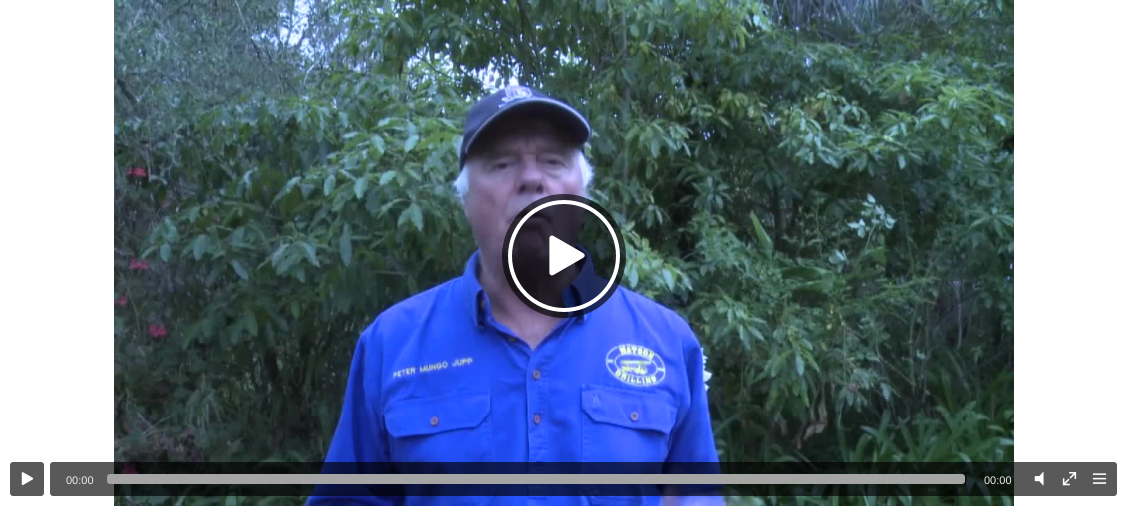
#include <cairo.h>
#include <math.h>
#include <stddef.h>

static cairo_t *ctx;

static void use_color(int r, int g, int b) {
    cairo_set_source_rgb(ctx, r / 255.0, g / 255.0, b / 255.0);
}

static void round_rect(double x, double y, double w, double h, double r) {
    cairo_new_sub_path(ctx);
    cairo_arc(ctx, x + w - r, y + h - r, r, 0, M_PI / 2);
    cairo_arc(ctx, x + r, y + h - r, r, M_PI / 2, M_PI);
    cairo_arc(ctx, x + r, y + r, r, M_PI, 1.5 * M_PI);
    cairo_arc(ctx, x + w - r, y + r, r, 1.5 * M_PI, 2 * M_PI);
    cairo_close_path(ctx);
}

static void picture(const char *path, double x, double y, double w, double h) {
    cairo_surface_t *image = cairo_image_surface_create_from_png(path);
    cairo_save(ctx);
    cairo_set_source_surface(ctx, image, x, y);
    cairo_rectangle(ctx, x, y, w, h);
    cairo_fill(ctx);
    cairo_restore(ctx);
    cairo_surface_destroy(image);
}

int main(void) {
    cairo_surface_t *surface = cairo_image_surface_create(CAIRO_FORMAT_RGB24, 1127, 506);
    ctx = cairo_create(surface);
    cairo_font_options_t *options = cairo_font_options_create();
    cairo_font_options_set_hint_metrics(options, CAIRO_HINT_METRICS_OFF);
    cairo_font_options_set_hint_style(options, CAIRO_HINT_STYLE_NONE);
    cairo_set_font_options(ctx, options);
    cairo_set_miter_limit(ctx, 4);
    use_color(255, 255, 255);
    cairo_paint(ctx);
    picture("img1.png", 114, 0, 900, 506);
    cairo_set_source_rgba(ctx, 0, 0, 0, 0.65);
    cairo_arc(ctx, 564, 256, 62, 0, 2 * M_PI);
    cairo_fill(ctx);
    cairo_arc(ctx, 564, 256, 54, 0, 2 * M_PI);
    use_color(255, 255, 255);
    cairo_set_line_width(ctx, 4);
    cairo_stroke(ctx);
    picture("img2.png", 549, 235, 36, 41);
    cairo_set_source_rgba(ctx, 0, 0, 0, 0.65);
    round_rect(50, 462, 1067, 34, 3);
    cairo_fill(ctx);
    use_color(89, 89, 89);
    round_rect(10, 462, 34, 34, 3);
    cairo_fill(ctx);
    picture("img3.png", 21, 472, 13, 14);
    use_color(165, 165, 165);
    round_rect(107, 474, 858, 10, 3);
    cairo_fill(ctx);
    picture("img4.png", 1034, 472, 10, 14);
    picture("img5.png", 1062, 472, 15, 14);
    picture("img6.png", 1092, 473, 15, 11);
    cairo_select_font_face(ctx, "Liberation Sans", CAIRO_FONT_SLANT_NORMAL, CAIRO_FONT_WEIGHT_NORMAL);
    cairo_set_font_size(ctx, 11);
    use_color(238, 238, 238);
    cairo_move_to(ctx, 66, 484);
    cairo_show_text(ctx, "00:00");
    cairo_move_to(ctx, 984, 484);
    cairo_show_text(ctx, "00:00");
    cairo_surface_write_to_png(surface, "result.png");
    cairo_font_options_destroy(options);
    cairo_destroy(ctx);
    cairo_surface_destroy(surface);
    return 0;
}
